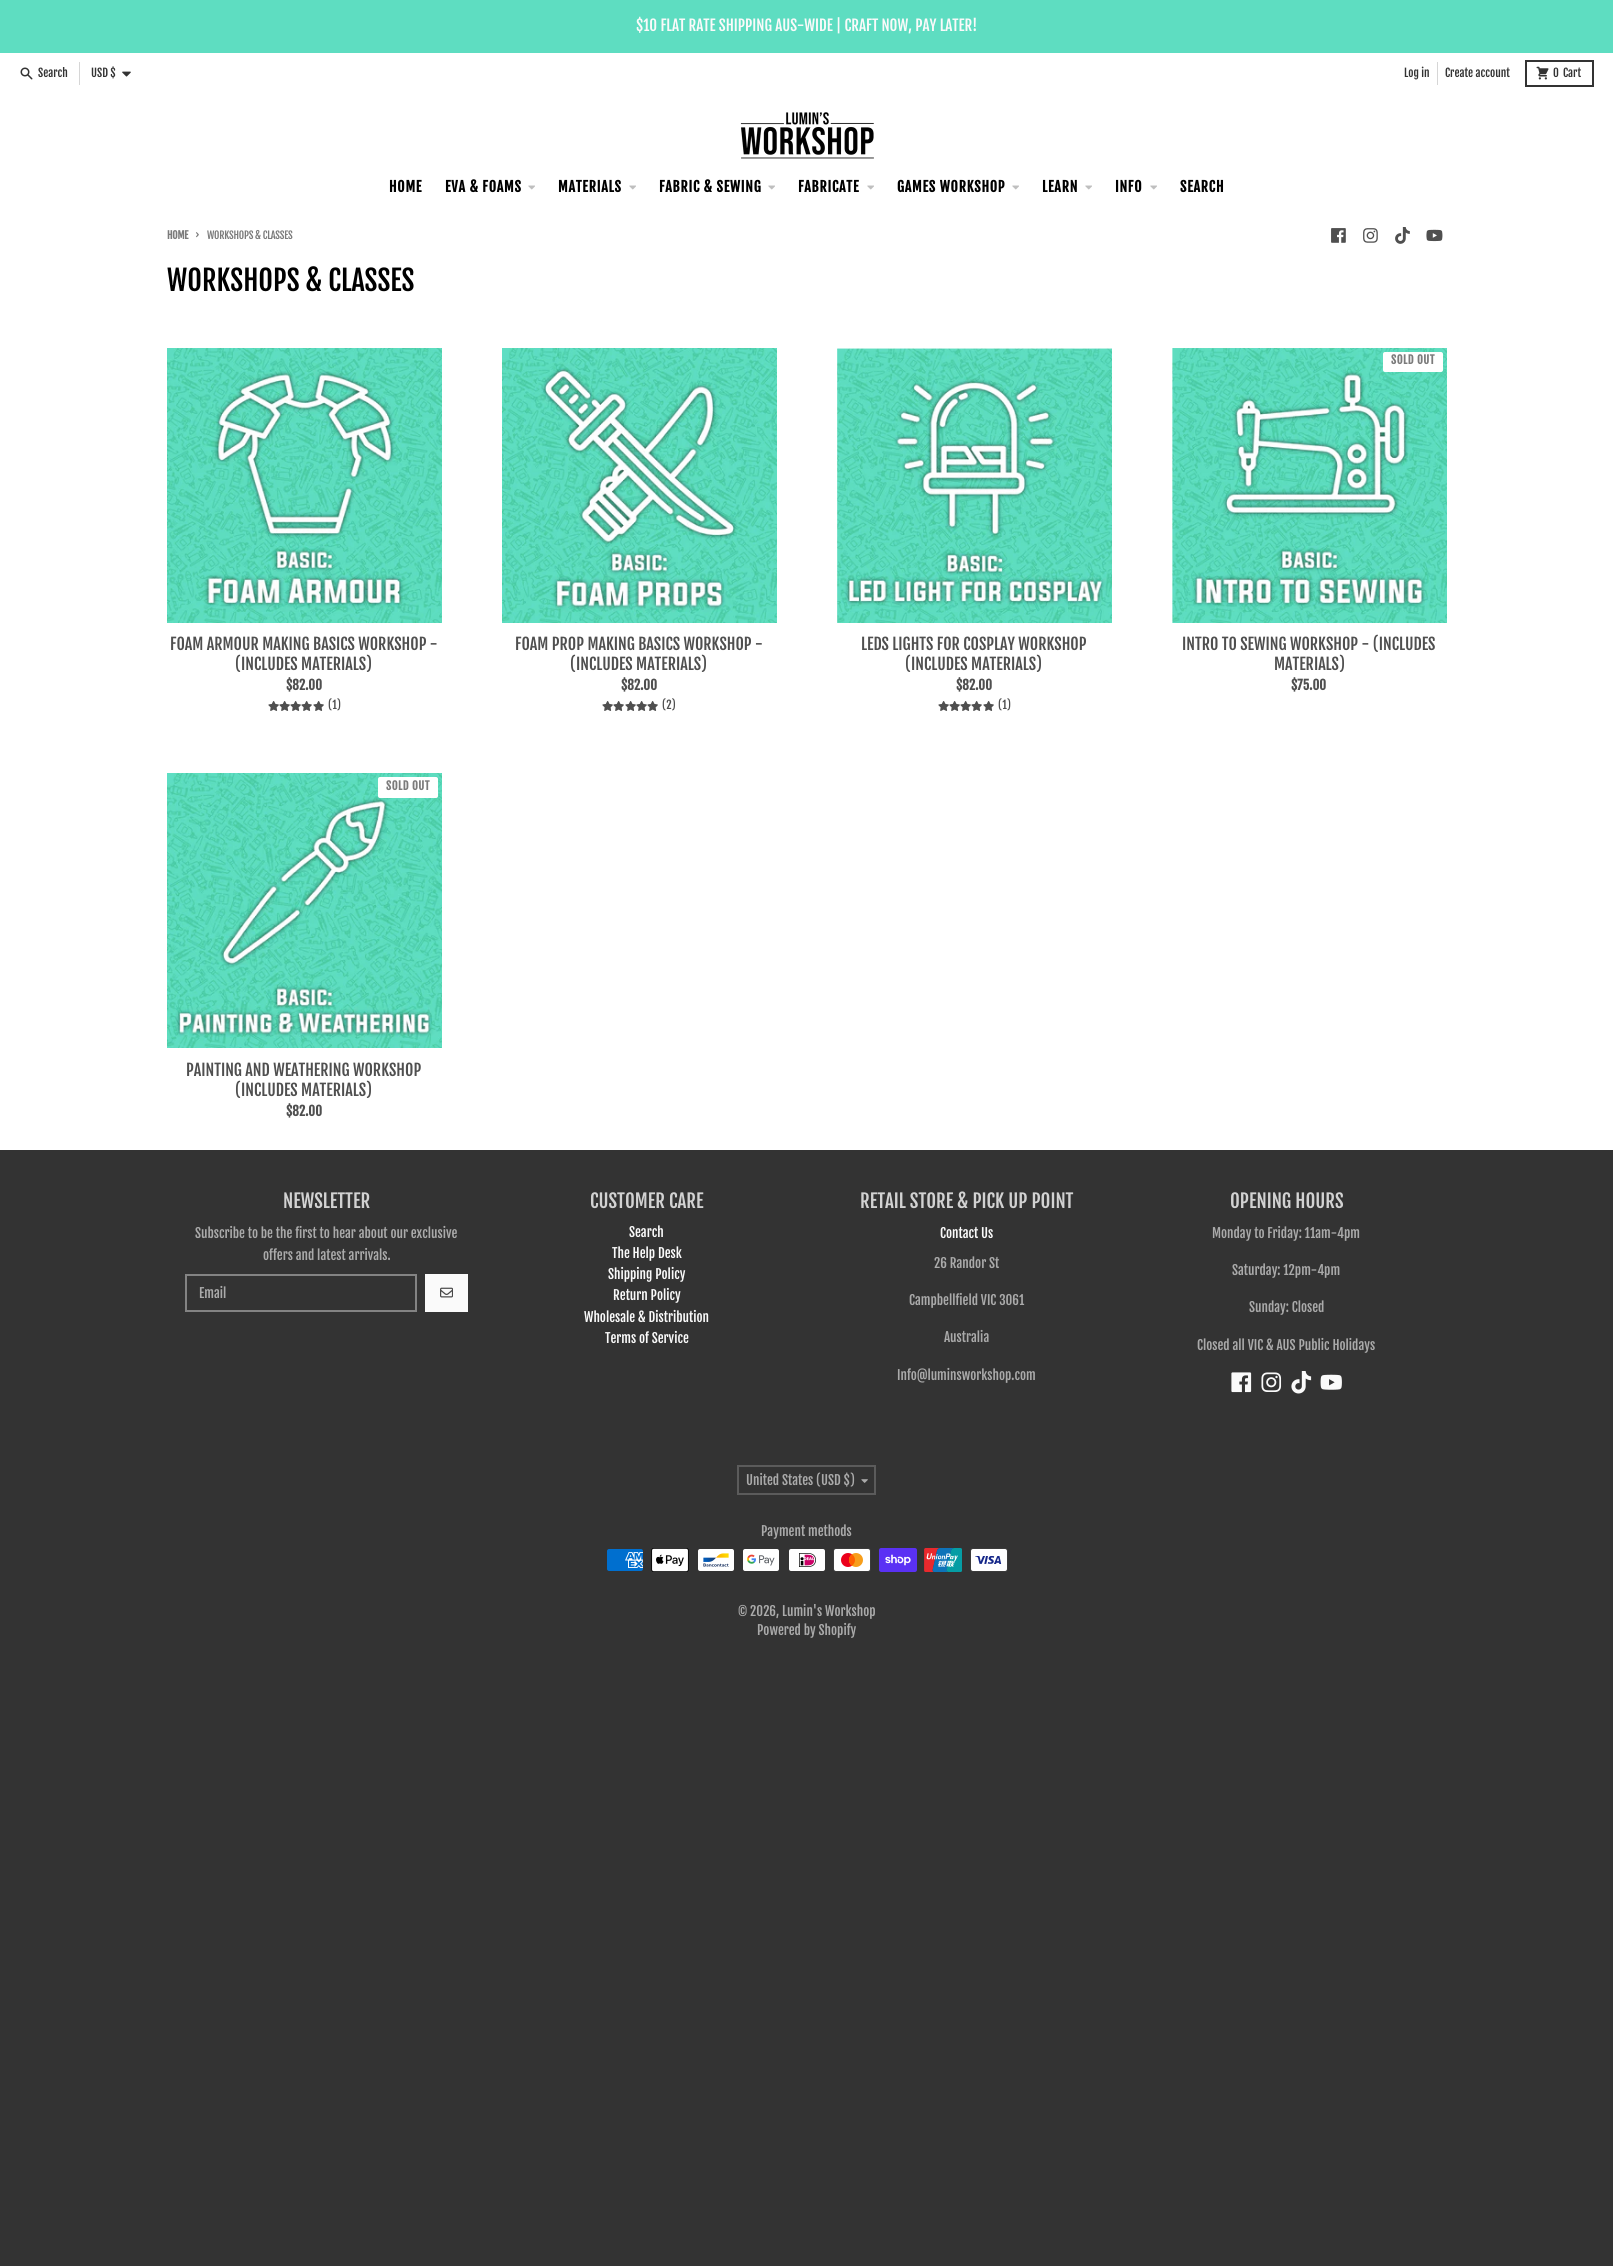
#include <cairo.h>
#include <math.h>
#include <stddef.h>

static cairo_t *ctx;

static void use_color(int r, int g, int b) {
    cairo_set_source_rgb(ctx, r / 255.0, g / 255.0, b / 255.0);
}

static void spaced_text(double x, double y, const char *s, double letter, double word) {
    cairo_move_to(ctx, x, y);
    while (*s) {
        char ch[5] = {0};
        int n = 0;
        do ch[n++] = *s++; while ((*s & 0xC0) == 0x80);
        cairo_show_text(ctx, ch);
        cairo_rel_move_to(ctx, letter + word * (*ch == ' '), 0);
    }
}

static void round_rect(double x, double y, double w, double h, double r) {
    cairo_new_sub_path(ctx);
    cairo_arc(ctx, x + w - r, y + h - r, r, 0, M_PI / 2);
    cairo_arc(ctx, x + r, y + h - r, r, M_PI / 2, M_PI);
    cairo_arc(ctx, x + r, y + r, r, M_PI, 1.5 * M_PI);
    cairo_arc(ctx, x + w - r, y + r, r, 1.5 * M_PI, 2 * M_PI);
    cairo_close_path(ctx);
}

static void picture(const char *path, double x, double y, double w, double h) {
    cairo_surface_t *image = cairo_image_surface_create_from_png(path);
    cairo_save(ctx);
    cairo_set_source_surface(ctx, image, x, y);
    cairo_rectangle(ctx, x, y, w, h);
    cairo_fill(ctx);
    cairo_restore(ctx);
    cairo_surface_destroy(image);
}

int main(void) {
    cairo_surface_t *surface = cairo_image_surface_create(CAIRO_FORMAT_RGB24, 1613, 2266);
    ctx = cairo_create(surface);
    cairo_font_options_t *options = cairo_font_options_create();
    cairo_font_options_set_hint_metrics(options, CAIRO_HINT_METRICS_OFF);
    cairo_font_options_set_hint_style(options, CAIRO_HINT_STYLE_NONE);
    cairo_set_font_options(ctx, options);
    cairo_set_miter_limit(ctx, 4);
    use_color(51, 51, 51);
    cairo_paint(ctx);
    use_color(94, 221, 193);
    cairo_rectangle(ctx, 0, 0, 1613, 53);
    cairo_fill(ctx);
    cairo_select_font_face(ctx, "Fjalla One", CAIRO_FONT_SLANT_NORMAL, CAIRO_FONT_WEIGHT_NORMAL);
    cairo_set_font_size(ctx, 15);
    use_color(250, 250, 250);
    cairo_move_to(ctx, 636, 31);
    cairo_show_text(ctx, "$10 FLAT RATE SHIPPING AUS-WIDE | CRAFT NOW, PAY LATER!");
    use_color(255, 255, 255);
    cairo_rectangle(ctx, 0, 53, 1613, 1097);
    cairo_fill(ctx);
    picture("img1.png", 20, 67, 13, 13);
    cairo_set_font_size(ctx, 11.25);
    use_color(51, 51, 51);
    cairo_move_to(ctx, 38, 77);
    cairo_show_text(ctx, "Search");
    use_color(214, 214, 214);
    cairo_rectangle(ctx, 79, 62, 1, 23);
    cairo_fill(ctx);
    use_color(51, 51, 51);
    cairo_move_to(ctx, 91, 77);
    cairo_show_text(ctx, "USD $");
    picture("img2.png", 122, 71, 9, 6);
    cairo_move_to(ctx, 1404, 77);
    cairo_show_text(ctx, "Log in");
    use_color(214, 214, 214);
    cairo_rectangle(ctx, 1437, 62, 1, 23);
    cairo_fill(ctx);
    use_color(51, 51, 51);
    cairo_move_to(ctx, 1445, 77);
    cairo_show_text(ctx, "Create account");
    cairo_rectangle(ctx, 1526, 61, 67, 25);
    cairo_stroke(ctx);
    picture("img3.png", 1536, 66, 13, 14);
    cairo_move_to(ctx, 1553, 77);
    cairo_show_text(ctx, "0");
    cairo_move_to(ctx, 1563, 77);
    cairo_show_text(ctx, "Cart");
    picture("img4.png", 740, 112, 134, 47);
    cairo_select_font_face(ctx, "Fjalla One", CAIRO_FONT_SLANT_NORMAL, CAIRO_FONT_WEIGHT_BOLD);
    cairo_set_font_size(ctx, 14);
    use_color(0, 0, 0);
    spaced_text(389, 192, "HOME", 0.75, 0);
    spaced_text(445, 192, "EVA & FOAMS", 0.75, 0);
    picture("img5.png", 528, 185, 7, 5);
    spaced_text(558, 192, "MATERIALS", 0.75, 0);
    picture("img5.png", 629, 185, 7, 5);
    spaced_text(659, 192, "FABRIC & SEWING", 0.75, 0);
    picture("img5.png", 768, 185, 7, 5);
    spaced_text(798, 192, "FABRICATE", 0.75, 0);
    picture("img5.png", 867, 185, 7, 5);
    spaced_text(897, 192, "GAMES WORKSHOP", 0.75, 0);
    picture("img5.png", 1012, 185, 7, 5);
    spaced_text(1042, 192, "LEARN", 0.75, 0);
    picture("img5.png", 1085, 185, 7, 5);
    spaced_text(1115, 192, "INFO", 0.75, 0);
    picture("img5.png", 1150, 185, 7, 5);
    spaced_text(1180, 192, "SEARCH", 0.75, 0);
    cairo_set_font_size(ctx, 10.25);
    use_color(123, 123, 123);
    spaced_text(167, 239, "HOME", -0.25, 0);
    cairo_select_font_face(ctx, "Fjalla One", CAIRO_FONT_SLANT_NORMAL, CAIRO_FONT_WEIGHT_NORMAL);
    cairo_set_font_size(ctx, 11.25);
    spaced_text(195, 239, "›", -0.25, 0);
    cairo_set_font_size(ctx, 10.25);
    spaced_text(207, 239, "WORKSHOPS & CLASSES", -0.25, 0);
    picture("img6.png", 1331, 228, 15, 15);
    picture("img7.png", 1363, 228, 15, 15);
    picture("img8.png", 1395, 227, 15, 17);
    picture("img9.png", 1426, 229, 17, 13);
    cairo_set_font_size(ctx, 28.1);
    use_color(0, 0, 0);
    cairo_move_to(ctx, 167, 291);
    cairo_show_text(ctx, "WORKSHOPS & CLASSES");
    picture("img10.png", 167, 348, 275, 275);
    cairo_set_font_size(ctx, 16);
    use_color(79, 79, 79);
    cairo_move_to(ctx, 170, 650);
    cairo_show_text(ctx, "FOAM ARMOUR MAKING BASICS WORKSHOP -");
    cairo_move_to(ctx, 235, 670);
    cairo_show_text(ctx, "(INCLUDES MATERIALS)");
    cairo_select_font_face(ctx, "Fjalla One", CAIRO_FONT_SLANT_NORMAL, CAIRO_FONT_WEIGHT_BOLD);
    cairo_set_font_size(ctx, 13.1);
    cairo_move_to(ctx, 286, 690);
    cairo_show_text(ctx, "$82.00");
    picture("img11.png", 268, 701, 11, 10);
    picture("img11.png", 279, 701, 11, 10);
    picture("img11.png", 290, 701, 11, 10);
    picture("img11.png", 301, 701, 11, 10);
    picture("img11.png", 313, 701, 11, 10);
    cairo_select_font_face(ctx, "Fjalla One", CAIRO_FONT_SLANT_NORMAL, CAIRO_FONT_WEIGHT_NORMAL);
    cairo_set_font_size(ctx, 11.25);
    cairo_move_to(ctx, 328, 709);
    cairo_show_text(ctx, "(1)");
    picture("img12.png", 502, 348, 275, 275);
    cairo_set_font_size(ctx, 16);
    cairo_move_to(ctx, 515, 650);
    cairo_show_text(ctx, "FOAM PROP MAKING BASICS WORKSHOP -");
    cairo_move_to(ctx, 570, 670);
    cairo_show_text(ctx, "(INCLUDES MATERIALS)");
    cairo_select_font_face(ctx, "Fjalla One", CAIRO_FONT_SLANT_NORMAL, CAIRO_FONT_WEIGHT_BOLD);
    cairo_set_font_size(ctx, 13.1);
    cairo_move_to(ctx, 621, 690);
    cairo_show_text(ctx, "$82.00");
    picture("img11.png", 602, 701, 11, 10);
    picture("img11.png", 613, 701, 11, 10);
    picture("img11.png", 625, 701, 11, 10);
    picture("img11.png", 636, 701, 11, 10);
    picture("img11.png", 647, 701, 11, 10);
    cairo_select_font_face(ctx, "Fjalla One", CAIRO_FONT_SLANT_NORMAL, CAIRO_FONT_WEIGHT_NORMAL);
    cairo_set_font_size(ctx, 11.25);
    cairo_move_to(ctx, 662, 709);
    cairo_show_text(ctx, "(2)");
    picture("img13.png", 837, 348, 275, 275);
    cairo_set_font_size(ctx, 16);
    cairo_move_to(ctx, 861, 650);
    cairo_show_text(ctx, "LEDS LIGHTS FOR COSPLAY WORKSHOP");
    cairo_move_to(ctx, 905, 670);
    cairo_show_text(ctx, "(INCLUDES MATERIALS)");
    cairo_select_font_face(ctx, "Fjalla One", CAIRO_FONT_SLANT_NORMAL, CAIRO_FONT_WEIGHT_BOLD);
    cairo_set_font_size(ctx, 13.1);
    cairo_move_to(ctx, 956, 690);
    cairo_show_text(ctx, "$82.00");
    picture("img11.png", 938, 701, 11, 10);
    picture("img11.png", 949, 701, 11, 10);
    picture("img11.png", 960, 701, 11, 10);
    picture("img11.png", 971, 701, 11, 10);
    picture("img11.png", 983, 701, 11, 10);
    cairo_select_font_face(ctx, "Fjalla One", CAIRO_FONT_SLANT_NORMAL, CAIRO_FONT_WEIGHT_NORMAL);
    cairo_set_font_size(ctx, 11.25);
    cairo_move_to(ctx, 998, 709);
    cairo_show_text(ctx, "(1)");
    picture("img14.png", 1172, 348, 275, 275);
    use_color(255, 255, 255);
    round_rect(1383, 352, 60, 20, 2);
    cairo_fill(ctx);
    cairo_select_font_face(ctx, "Fjalla One", CAIRO_FONT_SLANT_NORMAL, CAIRO_FONT_WEIGHT_BOLD);
    use_color(123, 123, 123);
    spaced_text(1391, 364, "SOLD OUT", 0.5, 0);
    cairo_select_font_face(ctx, "Fjalla One", CAIRO_FONT_SLANT_NORMAL, CAIRO_FONT_WEIGHT_NORMAL);
    cairo_set_font_size(ctx, 16);
    use_color(79, 79, 79);
    cairo_move_to(ctx, 1182, 650);
    cairo_show_text(ctx, "INTRO TO SEWING WORKSHOP - (INCLUDES");
    cairo_move_to(ctx, 1274, 670);
    cairo_show_text(ctx, "MATERIALS)");
    cairo_select_font_face(ctx, "Fjalla One", CAIRO_FONT_SLANT_NORMAL, CAIRO_FONT_WEIGHT_BOLD);
    cairo_set_font_size(ctx, 13.1);
    cairo_move_to(ctx, 1291, 690);
    cairo_show_text(ctx, "$75.00");
    picture("img15.png", 167, 773, 275, 275);
    use_color(255, 255, 255);
    round_rect(378, 777, 60, 21, 2);
    cairo_fill(ctx);
    cairo_set_font_size(ctx, 11.25);
    use_color(123, 123, 123);
    spaced_text(386, 790, "SOLD OUT", 0.5, 0);
    cairo_select_font_face(ctx, "Fjalla One", CAIRO_FONT_SLANT_NORMAL, CAIRO_FONT_WEIGHT_NORMAL);
    cairo_set_font_size(ctx, 16);
    use_color(79, 79, 79);
    cairo_move_to(ctx, 186, 1076);
    cairo_show_text(ctx, "PAINTING AND WEATHERING WORKSHOP");
    cairo_move_to(ctx, 235, 1096);
    cairo_show_text(ctx, "(INCLUDES MATERIALS)");
    cairo_select_font_face(ctx, "Fjalla One", CAIRO_FONT_SLANT_NORMAL, CAIRO_FONT_WEIGHT_BOLD);
    cairo_set_font_size(ctx, 13.1);
    cairo_move_to(ctx, 286, 1116);
    cairo_show_text(ctx, "$82.00");
    cairo_select_font_face(ctx, "Fjalla One", CAIRO_FONT_SLANT_NORMAL, CAIRO_FONT_WEIGHT_NORMAL);
    cairo_set_font_size(ctx, 18.75);
    use_color(210, 210, 210);
    cairo_move_to(ctx, 283, 1208);
    cairo_show_text(ctx, "NEWSLETTER");
    cairo_set_font_size(ctx, 13.1);
    use_color(170, 170, 170);
    cairo_move_to(ctx, 195, 1238);
    cairo_show_text(ctx, "Subscribe to be the first to hear about our exclusive");
    cairo_move_to(ctx, 263, 1260);
    cairo_show_text(ctx, "offers and latest arrivals.");
    cairo_rectangle(ctx, 186, 1275, 230, 36);
    use_color(131, 131, 131);
    cairo_stroke(ctx);
    use_color(170, 170, 170);
    cairo_move_to(ctx, 199, 1298);
    cairo_show_text(ctx, "Email");
    use_color(250, 250, 250);
    cairo_rectangle(ctx, 425, 1274, 43, 38);
    cairo_fill(ctx);
    picture("img16.png", 440, 1287, 13, 11);
    cairo_set_font_size(ctx, 18.75);
    use_color(210, 210, 210);
    cairo_move_to(ctx, 590, 1208);
    cairo_show_text(ctx, "CUSTOMER CARE");
    cairo_set_font_size(ctx, 13.1);
    use_color(250, 250, 250);
    cairo_move_to(ctx, 629, 1237);
    cairo_show_text(ctx, "Search");
    cairo_move_to(ctx, 612, 1258);
    cairo_show_text(ctx, "The Help Desk");
    cairo_move_to(ctx, 608, 1279);
    cairo_show_text(ctx, "Shipping Policy");
    cairo_move_to(ctx, 613, 1300);
    cairo_show_text(ctx, "Return Policy");
    cairo_move_to(ctx, 584, 1322);
    cairo_show_text(ctx, "Wholesale & Distribution");
    cairo_move_to(ctx, 605, 1343);
    cairo_show_text(ctx, "Terms of Service");
    cairo_set_font_size(ctx, 18.75);
    use_color(210, 210, 210);
    cairo_move_to(ctx, 860, 1208);
    cairo_show_text(ctx, "RETAIL STORE & PICK UP POINT");
    cairo_set_font_size(ctx, 13.1);
    use_color(250, 250, 250);
    cairo_move_to(ctx, 940, 1238);
    cairo_show_text(ctx, "Contact Us");
    use_color(170, 170, 170);
    cairo_move_to(ctx, 934, 1268);
    cairo_show_text(ctx, "26 Randor St");
    cairo_move_to(ctx, 909, 1305);
    cairo_show_text(ctx, "Campbellfield VIC 3061");
    cairo_move_to(ctx, 944, 1342);
    cairo_show_text(ctx, "Australia");
    cairo_move_to(ctx, 897, 1380);
    cairo_show_text(ctx, "Info@luminsworkshop.com");
    cairo_set_font_size(ctx, 18.75);
    use_color(210, 210, 210);
    cairo_move_to(ctx, 1230, 1208);
    cairo_show_text(ctx, "OPENING HOURS");
    cairo_set_font_size(ctx, 13.1);
    use_color(170, 170, 170);
    cairo_move_to(ctx, 1212, 1238);
    cairo_show_text(ctx, "Monday to Friday: 11am-4pm");
    cairo_move_to(ctx, 1232, 1275);
    cairo_show_text(ctx, "Saturday: 12pm-4pm");
    cairo_move_to(ctx, 1249, 1312);
    cairo_show_text(ctx, "Sunday: Closed");
    cairo_move_to(ctx, 1197, 1350);
    cairo_show_text(ctx, "Closed all VIC & AUS Public Holidays");
    picture("img17.png", 1231, 1372, 21, 21);
    picture("img18.png", 1261, 1372, 21, 20);
    picture("img19.png", 1291, 1371, 21, 23);
    picture("img20.png", 1320, 1374, 22, 16);
    cairo_rectangle(ctx, 738, 1466, 137, 28);
    use_color(91, 91, 91);
    cairo_stroke(ctx);
    use_color(170, 170, 170);
    cairo_move_to(ctx, 746, 1485);
    cairo_show_text(ctx, "United States (USD $)");
    picture("img21.png", 861, 1479, 7, 4);
    cairo_move_to(ctx, 761, 1536);
    cairo_show_text(ctx, "Payment methods");
    picture("img22.png", 607, 1549, 36, 22);
    picture("img23.png", 651, 1548, 38, 24);
    picture("img24.png", 698, 1549, 36, 22);
    picture("img25.png", 743, 1549, 36, 22);
    picture("img26.png", 789, 1549, 36, 22);
    picture("img27.png", 833, 1548, 38, 24);
    picture("img28.png", 879, 1548, 38, 24);
    picture("img29.png", 924, 1548, 38, 24);
    picture("img30.png", 970, 1548, 38, 24);
    cairo_move_to(ctx, 738, 1616);
    cairo_show_text(ctx, "© 2026, Lumin's Workshop");
    cairo_move_to(ctx, 757, 1635);
    cairo_show_text(ctx, "Powered by Shopify");
    cairo_surface_write_to_png(surface, "result.png");
    cairo_font_options_destroy(options);
    cairo_destroy(ctx);
    cairo_surface_destroy(surface);
    return 0;
}
